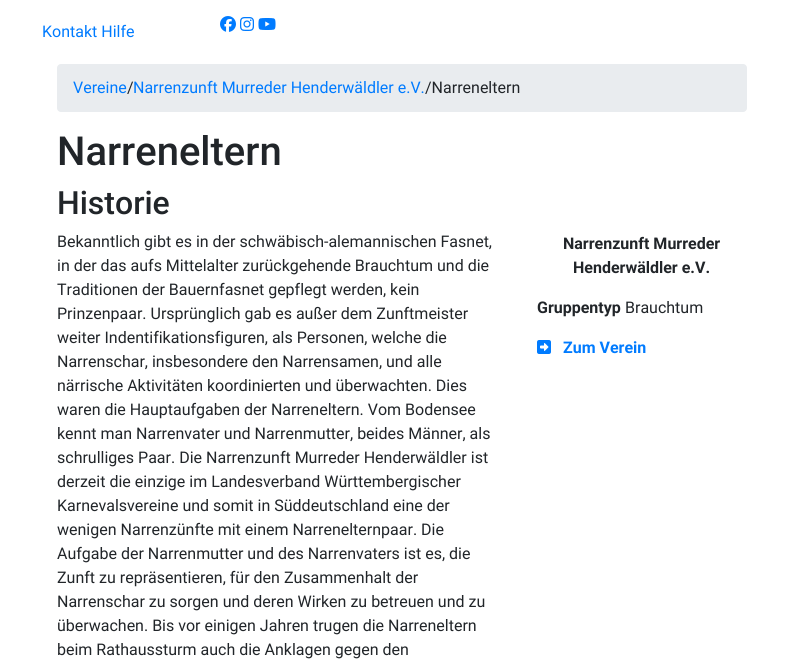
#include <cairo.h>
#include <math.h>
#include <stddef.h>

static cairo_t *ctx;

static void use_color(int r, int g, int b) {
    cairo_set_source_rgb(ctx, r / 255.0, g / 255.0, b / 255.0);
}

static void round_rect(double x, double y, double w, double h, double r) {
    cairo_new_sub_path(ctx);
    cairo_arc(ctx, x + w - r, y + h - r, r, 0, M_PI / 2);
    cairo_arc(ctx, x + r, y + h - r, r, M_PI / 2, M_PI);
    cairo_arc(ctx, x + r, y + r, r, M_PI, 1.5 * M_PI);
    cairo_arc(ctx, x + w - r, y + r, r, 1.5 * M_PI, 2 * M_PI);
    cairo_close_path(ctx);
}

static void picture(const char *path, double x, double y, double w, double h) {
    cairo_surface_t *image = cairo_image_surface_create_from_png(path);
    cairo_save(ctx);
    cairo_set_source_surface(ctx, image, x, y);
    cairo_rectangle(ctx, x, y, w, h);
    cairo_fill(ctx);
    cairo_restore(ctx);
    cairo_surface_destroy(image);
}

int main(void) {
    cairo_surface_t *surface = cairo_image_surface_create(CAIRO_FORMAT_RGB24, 804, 668);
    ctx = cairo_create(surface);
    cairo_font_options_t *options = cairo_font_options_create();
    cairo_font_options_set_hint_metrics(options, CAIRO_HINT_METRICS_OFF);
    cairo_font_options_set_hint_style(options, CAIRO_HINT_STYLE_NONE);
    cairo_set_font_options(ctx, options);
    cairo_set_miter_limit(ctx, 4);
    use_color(255, 255, 255);
    cairo_paint(ctx);
    cairo_select_font_face(ctx, "Roboto", CAIRO_FONT_SLANT_NORMAL, CAIRO_FONT_WEIGHT_NORMAL);
    cairo_set_font_size(ctx, 16);
    use_color(0, 123, 255);
    cairo_move_to(ctx, 42, 37);
    cairo_show_text(ctx, "Kontakt Hilfe");
    picture("img1.png", 220, 16, 16, 16);
    picture("img2.png", 240, 17, 14, 14);
    picture("img3.png", 258, 18, 18, 12);
    use_color(233, 236, 239);
    round_rect(57, 64, 690, 48, 4);
    cairo_fill(ctx);
    use_color(0, 123, 255);
    cairo_move_to(ctx, 73, 93);
    cairo_show_text(ctx, "Vereine");
    use_color(33, 37, 41);
    cairo_move_to(ctx, 127, 93);
    cairo_show_text(ctx, "/");
    use_color(0, 123, 255);
    cairo_move_to(ctx, 133, 93);
    cairo_show_text(ctx, "Narrenzunft Murreder Henderwäldler e.V.");
    use_color(33, 37, 41);
    cairo_move_to(ctx, 425, 93);
    cairo_show_text(ctx, "/Narreneltern");
    cairo_select_font_face(ctx, "Roboto Medium", CAIRO_FONT_SLANT_NORMAL, CAIRO_FONT_WEIGHT_NORMAL);
    cairo_set_font_size(ctx, 40);
    cairo_move_to(ctx, 57, 165);
    cairo_show_text(ctx, "Narreneltern");
    cairo_set_font_size(ctx, 32);
    cairo_move_to(ctx, 57, 214);
    cairo_show_text(ctx, "Historie");
    cairo_select_font_face(ctx, "Roboto", CAIRO_FONT_SLANT_NORMAL, CAIRO_FONT_WEIGHT_NORMAL);
    cairo_set_font_size(ctx, 16);
    cairo_move_to(ctx, 57, 247);
    cairo_show_text(ctx, "Bekanntlich gibt es in der schwäbisch-alemannischen Fasnet,");
    cairo_move_to(ctx, 57, 271);
    cairo_show_text(ctx, "in der das aufs Mittelalter zurückgehende Brauchtum und die");
    cairo_move_to(ctx, 57, 295);
    cairo_show_text(ctx, "Traditionen der Bauernfasnet gepflegt werden, kein");
    cairo_move_to(ctx, 57, 319);
    cairo_show_text(ctx, "Prinzenpaar. Ursprünglich gab es außer dem Zunftmeister");
    cairo_move_to(ctx, 57, 343);
    cairo_show_text(ctx, "weiter Indentifikationsfiguren, als Personen, welche die");
    cairo_move_to(ctx, 57, 367);
    cairo_show_text(ctx, "Narrenschar, insbesondere den Narrensamen, und alle");
    cairo_move_to(ctx, 57, 391);
    cairo_show_text(ctx, "närrische Aktivitäten koordinierten und überwachten. Dies");
    cairo_move_to(ctx, 57, 415);
    cairo_show_text(ctx, "waren die Hauptaufgaben der Narreneltern. Vom Bodensee");
    cairo_move_to(ctx, 57, 439);
    cairo_show_text(ctx, "kennt man Narrenvater und Narrenmutter, beides Männer, als");
    cairo_move_to(ctx, 57, 463);
    cairo_show_text(ctx, "schrulliges Paar. Die Narrenzunft Murreder Henderwäldler ist");
    cairo_move_to(ctx, 57, 487);
    cairo_show_text(ctx, "derzeit die einzige im Landesverband Württembergischer");
    cairo_move_to(ctx, 57, 511);
    cairo_show_text(ctx, "Karnevalsvereine und somit in Süddeutschland eine der");
    cairo_move_to(ctx, 57, 535);
    cairo_show_text(ctx, "wenigen Narrenzünfte mit einem Narrenelternpaar. Die");
    cairo_move_to(ctx, 57, 559);
    cairo_show_text(ctx, "Aufgabe der Narrenmutter und des Narrenvaters ist es, die");
    cairo_move_to(ctx, 57, 583);
    cairo_show_text(ctx, "Zunft zu repräsentieren, für den Zusammenhalt der");
    cairo_move_to(ctx, 57, 607);
    cairo_show_text(ctx, "Narrenschar zu sorgen und deren Wirken zu betreuen und zu");
    cairo_move_to(ctx, 57, 631);
    cairo_show_text(ctx, "überwachen. Bis vor einigen Jahren trugen die Narreneltern");
    cairo_move_to(ctx, 57, 655);
    cairo_show_text(ctx, "beim Rathaussturm auch die Anklagen gegen den");
    cairo_select_font_face(ctx, "Roboto", CAIRO_FONT_SLANT_NORMAL, CAIRO_FONT_WEIGHT_BOLD);
    cairo_move_to(ctx, 563, 249);
    cairo_show_text(ctx, "Narrenzunft Murreder");
    cairo_move_to(ctx, 573, 273);
    cairo_show_text(ctx, "Henderwäldler e.V.");
    cairo_move_to(ctx, 537, 313);
    cairo_show_text(ctx, "Gruppentyp");
    cairo_select_font_face(ctx, "Roboto", CAIRO_FONT_SLANT_NORMAL, CAIRO_FONT_WEIGHT_NORMAL);
    cairo_move_to(ctx, 625, 313);
    cairo_show_text(ctx, "Brauchtum");
    picture("img4.png", 537, 340, 14, 14);
    cairo_select_font_face(ctx, "Roboto", CAIRO_FONT_SLANT_NORMAL, CAIRO_FONT_WEIGHT_BOLD);
    use_color(0, 123, 255);
    cairo_move_to(ctx, 563, 353);
    cairo_show_text(ctx, "Zum Verein");
    cairo_surface_write_to_png(surface, "result.png");
    cairo_font_options_destroy(options);
    cairo_destroy(ctx);
    cairo_surface_destroy(surface);
    return 0;
}
